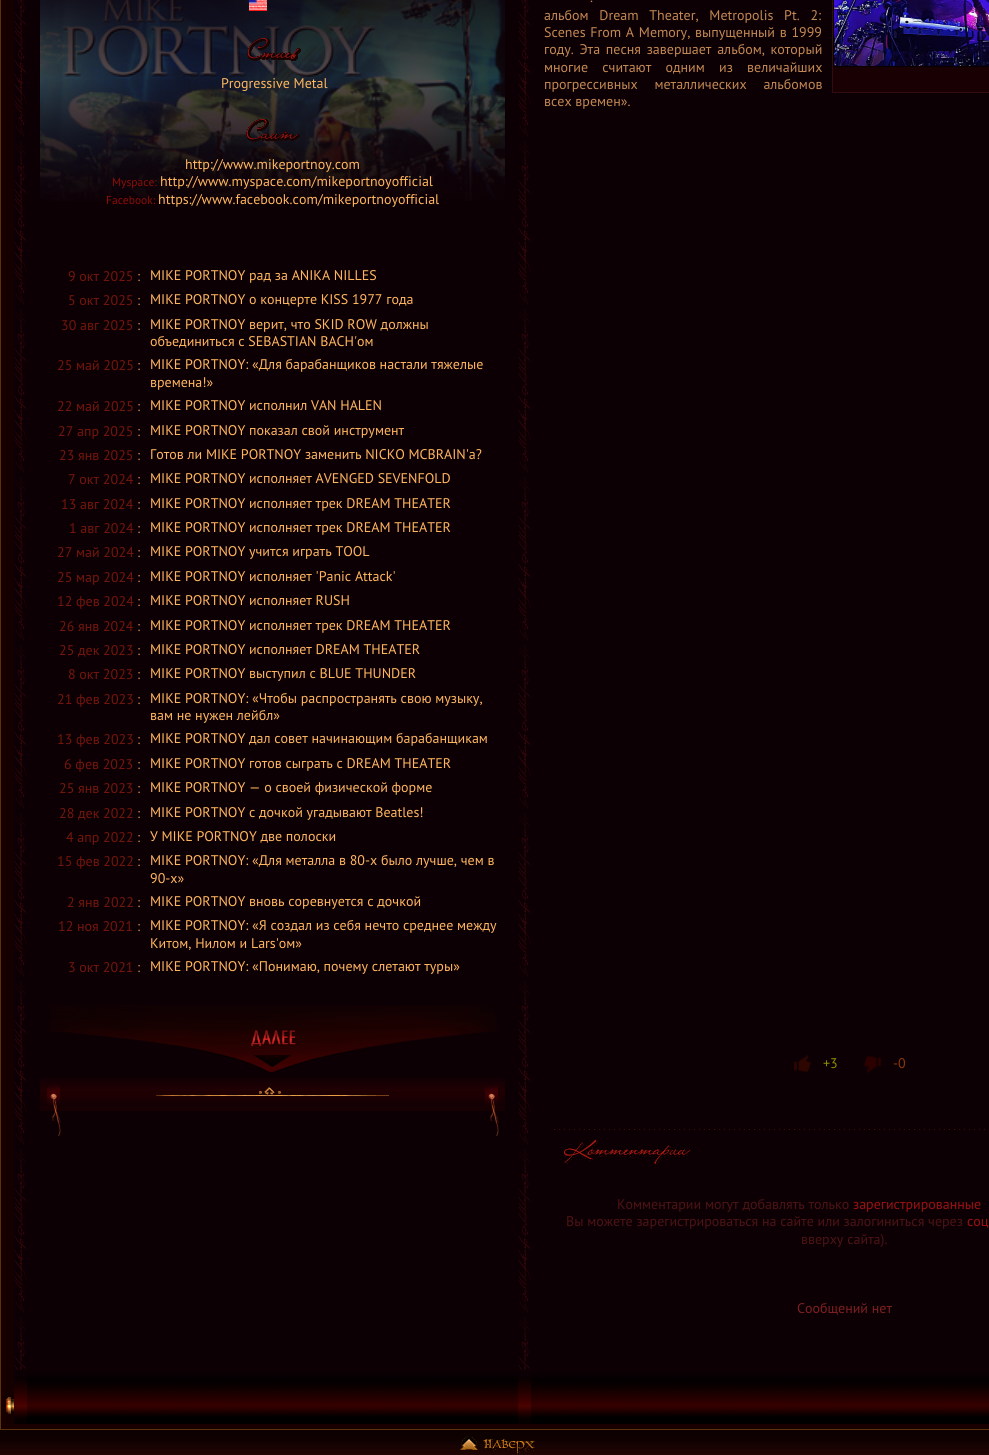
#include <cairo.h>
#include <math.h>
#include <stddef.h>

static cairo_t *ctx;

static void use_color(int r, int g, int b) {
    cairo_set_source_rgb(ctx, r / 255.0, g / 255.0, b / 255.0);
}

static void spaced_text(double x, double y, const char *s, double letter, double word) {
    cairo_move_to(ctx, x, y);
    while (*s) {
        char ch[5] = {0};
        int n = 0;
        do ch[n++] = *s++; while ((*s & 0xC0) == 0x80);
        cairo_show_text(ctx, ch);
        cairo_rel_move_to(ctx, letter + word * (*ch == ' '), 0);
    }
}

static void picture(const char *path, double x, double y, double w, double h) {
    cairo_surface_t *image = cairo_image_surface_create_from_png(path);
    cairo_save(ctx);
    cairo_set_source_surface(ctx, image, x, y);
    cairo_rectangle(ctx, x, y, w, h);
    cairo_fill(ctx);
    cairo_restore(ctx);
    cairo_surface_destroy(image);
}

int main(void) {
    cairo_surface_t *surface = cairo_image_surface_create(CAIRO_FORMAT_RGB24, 989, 1455);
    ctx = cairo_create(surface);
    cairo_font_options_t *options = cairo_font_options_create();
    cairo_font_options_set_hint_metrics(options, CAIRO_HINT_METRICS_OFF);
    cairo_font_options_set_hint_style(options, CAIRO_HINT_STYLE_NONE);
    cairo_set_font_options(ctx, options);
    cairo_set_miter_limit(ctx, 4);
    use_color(24, 0, 0);
    cairo_paint(ctx);
    cairo_rectangle(ctx, 0.5, -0.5, 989, 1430);
    use_color(91, 53, 9);
    cairo_set_line_width(ctx, 1);
    cairo_stroke(ctx);
    use_color(13, 0, 5);
    cairo_rectangle(ctx, 27, 0, 962, 1370);
    cairo_fill(ctx);
    use_color(21, 0, 0);
    cairo_rectangle(ctx, 6, 0, 8, 1424);
    cairo_fill(ctx);
    picture("img1.png", 14, 0, 13, 1370);
    picture("img2.png", 40, 0, 465, 201);
    picture("img3.png", 249, 0, 18, 11);
    picture("img4.png", 247, 38, 54, 23);
    cairo_select_font_face(ctx, "PT Sans", CAIRO_FONT_SLANT_NORMAL, CAIRO_FONT_WEIGHT_NORMAL);
    cairo_set_font_size(ctx, 14);
    use_color(255, 182, 95);
    cairo_move_to(ctx, 221, 88);
    cairo_show_text(ctx, "Progressive Metal");
    picture("img5.png", 246, 119, 54, 23);
    cairo_move_to(ctx, 185, 169);
    cairo_show_text(ctx, "http://www.mikeportnoy.com");
    cairo_set_font_size(ctx, 11.5);
    use_color(140, 13, 7);
    cairo_move_to(ctx, 112, 186);
    cairo_show_text(ctx, "Myspace:");
    cairo_set_font_size(ctx, 14);
    use_color(255, 182, 95);
    cairo_move_to(ctx, 160, 186);
    cairo_show_text(ctx, "http://www.myspace.com/mikeportnoyofficial");
    cairo_set_font_size(ctx, 11.5);
    use_color(140, 13, 7);
    cairo_move_to(ctx, 106, 204);
    cairo_show_text(ctx, "Facebook:");
    cairo_set_font_size(ctx, 14);
    use_color(255, 182, 95);
    cairo_move_to(ctx, 158, 204);
    cairo_show_text(ctx, "https://www.facebook.com/mikeportnoyofficial");
    use_color(114, 22, 11);
    cairo_move_to(ctx, 68, 281);
    cairo_show_text(ctx, "9 окт 2025");
    use_color(195, 137, 83);
    cairo_move_to(ctx, 137, 281);
    cairo_show_text(ctx, ":");
    use_color(255, 182, 95);
    cairo_move_to(ctx, 150, 280);
    cairo_show_text(ctx, "MIKE PORTNOY рад за ANIKA NILLES");
    use_color(114, 22, 11);
    cairo_move_to(ctx, 68, 305);
    cairo_show_text(ctx, "5 окт 2025");
    use_color(195, 137, 83);
    cairo_move_to(ctx, 137, 305);
    cairo_show_text(ctx, ":");
    use_color(255, 182, 95);
    cairo_move_to(ctx, 150, 304);
    cairo_show_text(ctx, "MIKE PORTNOY о концерте KISS 1977 года");
    use_color(114, 22, 11);
    cairo_move_to(ctx, 61, 330);
    cairo_show_text(ctx, "30 авг 2025");
    use_color(195, 137, 83);
    cairo_move_to(ctx, 137, 330);
    cairo_show_text(ctx, ":");
    use_color(255, 182, 95);
    cairo_move_to(ctx, 150, 329);
    cairo_show_text(ctx, "MIKE PORTNOY верит, что SKID ROW должны");
    cairo_move_to(ctx, 150, 346);
    cairo_show_text(ctx, "объединиться с SEBASTIAN BACH'ом");
    use_color(114, 22, 11);
    cairo_move_to(ctx, 57, 370);
    cairo_show_text(ctx, "25 май 2025");
    use_color(195, 137, 83);
    cairo_move_to(ctx, 137, 370);
    cairo_show_text(ctx, ":");
    use_color(255, 182, 95);
    cairo_move_to(ctx, 150, 369);
    cairo_show_text(ctx, "MIKE PORTNOY: «Для барабанщиков настали тяжелые");
    cairo_move_to(ctx, 150, 387);
    cairo_show_text(ctx, "времена!»");
    use_color(114, 22, 11);
    cairo_move_to(ctx, 57, 411);
    cairo_show_text(ctx, "22 май 2025");
    use_color(195, 137, 83);
    cairo_move_to(ctx, 137, 411);
    cairo_show_text(ctx, ":");
    use_color(255, 182, 95);
    cairo_move_to(ctx, 150, 410);
    cairo_show_text(ctx, "MIKE PORTNOY исполнил VAN HALEN");
    use_color(114, 22, 11);
    cairo_move_to(ctx, 58, 436);
    cairo_show_text(ctx, "27 апр 2025");
    use_color(195, 137, 83);
    cairo_move_to(ctx, 137, 436);
    cairo_show_text(ctx, ":");
    use_color(255, 182, 95);
    cairo_move_to(ctx, 150, 435);
    cairo_show_text(ctx, "MIKE PORTNOY показал свой инструмент");
    use_color(114, 22, 11);
    cairo_move_to(ctx, 59, 460);
    cairo_show_text(ctx, "23 янв 2025");
    use_color(195, 137, 83);
    cairo_move_to(ctx, 137, 460);
    cairo_show_text(ctx, ":");
    use_color(255, 182, 95);
    cairo_move_to(ctx, 150, 459);
    cairo_show_text(ctx, "Готов ли MIKE PORTNOY заменить NICKO MCBRAIN'а?");
    use_color(114, 22, 11);
    cairo_move_to(ctx, 68, 484);
    cairo_show_text(ctx, "7 окт 2024");
    use_color(195, 137, 83);
    cairo_move_to(ctx, 137, 484);
    cairo_show_text(ctx, ":");
    use_color(255, 182, 95);
    cairo_move_to(ctx, 150, 483);
    cairo_show_text(ctx, "MIKE PORTNOY исполняет AVENGED SEVENFOLD");
    use_color(114, 22, 11);
    cairo_move_to(ctx, 61, 509);
    cairo_show_text(ctx, "13 авг 2024");
    use_color(195, 137, 83);
    cairo_move_to(ctx, 137, 509);
    cairo_show_text(ctx, ":");
    use_color(255, 182, 95);
    cairo_move_to(ctx, 150, 508);
    cairo_show_text(ctx, "MIKE PORTNOY исполняет трек DREAM THEATER");
    use_color(114, 22, 11);
    cairo_move_to(ctx, 69, 533);
    cairo_show_text(ctx, "1 авг 2024");
    use_color(195, 137, 83);
    cairo_move_to(ctx, 137, 533);
    cairo_show_text(ctx, ":");
    use_color(255, 182, 95);
    cairo_move_to(ctx, 150, 532);
    cairo_show_text(ctx, "MIKE PORTNOY исполняет трек DREAM THEATER");
    use_color(114, 22, 11);
    cairo_move_to(ctx, 57, 557);
    cairo_show_text(ctx, "27 май 2024");
    use_color(195, 137, 83);
    cairo_move_to(ctx, 137, 557);
    cairo_show_text(ctx, ":");
    use_color(255, 182, 95);
    cairo_move_to(ctx, 150, 556);
    cairo_show_text(ctx, "MIKE PORTNOY учится играть TOOL");
    use_color(114, 22, 11);
    cairo_move_to(ctx, 57, 582);
    cairo_show_text(ctx, "25 мар 2024");
    use_color(195, 137, 83);
    cairo_move_to(ctx, 137, 582);
    cairo_show_text(ctx, ":");
    use_color(255, 182, 95);
    cairo_move_to(ctx, 150, 581);
    cairo_show_text(ctx, "MIKE PORTNOY исполняет 'Panic Attack'");
    use_color(114, 22, 11);
    cairo_move_to(ctx, 57, 606);
    cairo_show_text(ctx, "12 фев 2024");
    use_color(195, 137, 83);
    cairo_move_to(ctx, 137, 606);
    cairo_show_text(ctx, ":");
    use_color(255, 182, 95);
    cairo_move_to(ctx, 150, 605);
    cairo_show_text(ctx, "MIKE PORTNOY исполняет RUSH");
    use_color(114, 22, 11);
    cairo_move_to(ctx, 59, 631);
    cairo_show_text(ctx, "26 янв 2024");
    use_color(195, 137, 83);
    cairo_move_to(ctx, 137, 631);
    cairo_show_text(ctx, ":");
    use_color(255, 182, 95);
    cairo_move_to(ctx, 150, 630);
    cairo_show_text(ctx, "MIKE PORTNOY исполняет трек DREAM THEATER");
    use_color(114, 22, 11);
    cairo_move_to(ctx, 59, 655);
    cairo_show_text(ctx, "25 дек 2023");
    use_color(195, 137, 83);
    cairo_move_to(ctx, 137, 655);
    cairo_show_text(ctx, ":");
    use_color(255, 182, 95);
    cairo_move_to(ctx, 150, 654);
    cairo_show_text(ctx, "MIKE PORTNOY исполняет DREAM THEATER");
    use_color(114, 22, 11);
    cairo_move_to(ctx, 68, 679);
    cairo_show_text(ctx, "8 окт 2023");
    use_color(195, 137, 83);
    cairo_move_to(ctx, 137, 679);
    cairo_show_text(ctx, ":");
    use_color(255, 182, 95);
    cairo_move_to(ctx, 150, 678);
    cairo_show_text(ctx, "MIKE PORTNOY выступил с BLUE THUNDER");
    use_color(114, 22, 11);
    cairo_move_to(ctx, 57, 704);
    cairo_show_text(ctx, "21 фев 2023");
    use_color(195, 137, 83);
    cairo_move_to(ctx, 137, 704);
    cairo_show_text(ctx, ":");
    use_color(255, 182, 95);
    cairo_move_to(ctx, 150, 703);
    cairo_show_text(ctx, "MIKE PORTNOY: «Чтобы распространять свою музыку,");
    cairo_move_to(ctx, 150, 720);
    cairo_show_text(ctx, "вам не нужен лейбл»");
    use_color(114, 22, 11);
    cairo_move_to(ctx, 57, 744);
    cairo_show_text(ctx, "13 фев 2023");
    use_color(195, 137, 83);
    cairo_move_to(ctx, 137, 744);
    cairo_show_text(ctx, ":");
    use_color(255, 182, 95);
    cairo_move_to(ctx, 150, 743);
    cairo_show_text(ctx, "MIKE PORTNOY дал совет начинающим барабанщикам");
    use_color(114, 22, 11);
    cairo_move_to(ctx, 64, 769);
    cairo_show_text(ctx, "6 фев 2023");
    use_color(195, 137, 83);
    cairo_move_to(ctx, 137, 769);
    cairo_show_text(ctx, ":");
    use_color(255, 182, 95);
    cairo_move_to(ctx, 150, 768);
    cairo_show_text(ctx, "MIKE PORTNOY готов сыграть с DREAM THEATER");
    use_color(114, 22, 11);
    cairo_move_to(ctx, 59, 793);
    cairo_show_text(ctx, "25 янв 2023");
    use_color(195, 137, 83);
    cairo_move_to(ctx, 137, 793);
    cairo_show_text(ctx, ":");
    use_color(255, 182, 95);
    cairo_move_to(ctx, 150, 792);
    cairo_show_text(ctx, "MIKE PORTNOY — о своей физической форме");
    use_color(114, 22, 11);
    cairo_move_to(ctx, 59, 818);
    cairo_show_text(ctx, "28 дек 2022");
    use_color(195, 137, 83);
    cairo_move_to(ctx, 137, 818);
    cairo_show_text(ctx, ":");
    use_color(255, 182, 95);
    cairo_move_to(ctx, 150, 817);
    cairo_show_text(ctx, "MIKE PORTNOY с дочкой угадывают Beatles!");
    use_color(114, 22, 11);
    cairo_move_to(ctx, 66, 842);
    cairo_show_text(ctx, "4 апр 2022");
    use_color(195, 137, 83);
    cairo_move_to(ctx, 137, 842);
    cairo_show_text(ctx, ":");
    use_color(255, 182, 95);
    cairo_move_to(ctx, 150, 841);
    cairo_show_text(ctx, "У MIKE PORTNOY две полоски");
    use_color(114, 22, 11);
    cairo_move_to(ctx, 57, 866);
    cairo_show_text(ctx, "15 фев 2022");
    use_color(195, 137, 83);
    cairo_move_to(ctx, 137, 866);
    cairo_show_text(ctx, ":");
    use_color(255, 182, 95);
    cairo_move_to(ctx, 150, 865);
    cairo_show_text(ctx, "MIKE PORTNOY: «Для металла в 80-х было лучше, чем в");
    cairo_move_to(ctx, 150, 883);
    cairo_show_text(ctx, "90-х»");
    use_color(114, 22, 11);
    cairo_move_to(ctx, 67, 907);
    cairo_show_text(ctx, "2 янв 2022");
    use_color(195, 137, 83);
    cairo_move_to(ctx, 137, 907);
    cairo_show_text(ctx, ":");
    use_color(255, 182, 95);
    cairo_move_to(ctx, 150, 906);
    cairo_show_text(ctx, "MIKE PORTNOY вновь соревнуется с дочкой");
    use_color(114, 22, 11);
    cairo_move_to(ctx, 58, 931);
    cairo_show_text(ctx, "12 ноя 2021");
    use_color(195, 137, 83);
    cairo_move_to(ctx, 137, 931);
    cairo_show_text(ctx, ":");
    use_color(255, 182, 95);
    cairo_move_to(ctx, 150, 930);
    cairo_show_text(ctx, "MIKE PORTNOY: «Я создал из себя нечто среднее между");
    cairo_move_to(ctx, 150, 948);
    cairo_show_text(ctx, "Китом, Нилом и Lars'ом»");
    use_color(114, 22, 11);
    cairo_move_to(ctx, 68, 972);
    cairo_show_text(ctx, "3 окт 2021");
    use_color(195, 137, 83);
    cairo_move_to(ctx, 137, 972);
    cairo_show_text(ctx, ":");
    use_color(255, 182, 95);
    cairo_move_to(ctx, 150, 971);
    cairo_show_text(ctx, "MIKE PORTNOY: «Понимаю, почему слетают туры»");
    picture("img6.png", 50, 1005, 448, 67);
    picture("img7.png", 40, 1078, 465, 33);
    picture("img8.png", 47, 1085, 14, 51);
    picture("img9.png", 156, 1087, 233, 9);
    picture("img8.png", 485, 1085, 14, 51);
    picture("img1.png", 518, 0, 13, 1370);
    use_color(195, 137, 83);
    cairo_move_to(ctx, 590, 2);
    cairo_show_text(ctx, ".");
    use_color(24, 0, 3);
    cairo_rectangle(ctx, 833, 67, 156, 25);
    cairo_fill(ctx);
    cairo_rectangle(ctx, 832.5, -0.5, 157, 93);
    use_color(50, 13, 16);
    cairo_stroke(ctx);
    cairo_rectangle(ctx, 833.5, -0.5, 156, 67);
    use_color(8, 0, 0);
    cairo_stroke(ctx);
    picture("img10.png", 834, 0, 155, 66);
    use_color(195, 137, 83);
    spaced_text(544, 20, "альбом Dream Theater, Metropolis Pt. 2:", 0, 7);
    spaced_text(544, 37, "Scenes From A Memory, выпущенный в 1999", 0, 1);
    spaced_text(544, 54, "году. Эта песня завершает альбом, который", 0, 2);
    spaced_text(544, 72, "многие считают одним из величайших", 0, 10.5);
    spaced_text(544, 89, "прогрессивных металлических альбомов", 0, 13);
    cairo_move_to(ctx, 544, 106);
    cairo_show_text(ctx, "всех времен».");
    picture("img11.png", 794, 1055, 17, 17);
    use_color(141, 142, 0);
    cairo_move_to(ctx, 823, 1068);
    cairo_show_text(ctx, "+3");
    picture("img12.png", 864, 1056, 17, 17);
    use_color(137, 55, 8);
    cairo_move_to(ctx, 893, 1068);
    cairo_show_text(ctx, "-0");
    picture("img13.png", 554, 1129, 431, 1);
    picture("img14.png", 564, 1140, 126, 24);
    use_color(76, 19, 19);
    cairo_move_to(ctx, 617, 1209);
    cairo_show_text(ctx, "Комментарии могут добавлять только");
    use_color(153, 17, 17);
    cairo_move_to(ctx, 853, 1209);
    cairo_show_text(ctx, "зарегистрированные");
    use_color(76, 19, 19);
    cairo_move_to(ctx, 566, 1226);
    cairo_show_text(ctx, "Вы можете зарегистрироваться на сайте или залогиниться через");
    use_color(153, 17, 17);
    cairo_move_to(ctx, 967, 1226);
    cairo_show_text(ctx, "соц");
    use_color(76, 19, 19);
    cairo_move_to(ctx, 801, 1244);
    cairo_show_text(ctx, "вверху сайта).");
    use_color(125, 31, 31);
    cairo_move_to(ctx, 797, 1313);
    cairo_show_text(ctx, "Сообщений нет");
    picture("img15.png", 6, 1397, 8, 17);
    picture("img16.png", 14, 1370, 13, 54);
    picture("img17.png", 27, 1370, 13, 54);
    picture("img18.png", 40, 1370, 465, 54);
    picture("img17.png", 505, 1370, 13, 54);
    picture("img16.png", 518, 1370, 13, 54);
    picture("img17.png", 531, 1370, 13, 54);
    picture("img19.png", 544, 1370, 445, 54);
    picture("img20.png", 0, 1430, 989, 25);
    picture("img21.png", 460, 1436, 18, 14);
    picture("img22.png", 483, 1439, 52, 16);
    cairo_surface_write_to_png(surface, "result.png");
    cairo_font_options_destroy(options);
    cairo_destroy(ctx);
    cairo_surface_destroy(surface);
    return 0;
}
